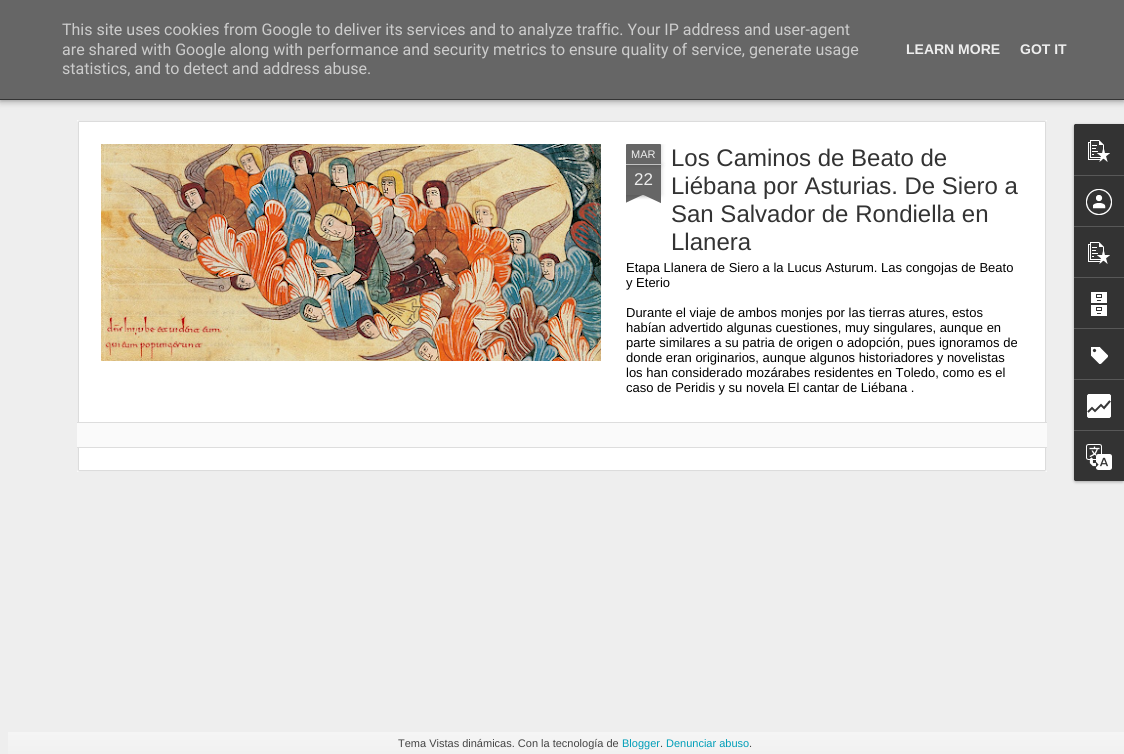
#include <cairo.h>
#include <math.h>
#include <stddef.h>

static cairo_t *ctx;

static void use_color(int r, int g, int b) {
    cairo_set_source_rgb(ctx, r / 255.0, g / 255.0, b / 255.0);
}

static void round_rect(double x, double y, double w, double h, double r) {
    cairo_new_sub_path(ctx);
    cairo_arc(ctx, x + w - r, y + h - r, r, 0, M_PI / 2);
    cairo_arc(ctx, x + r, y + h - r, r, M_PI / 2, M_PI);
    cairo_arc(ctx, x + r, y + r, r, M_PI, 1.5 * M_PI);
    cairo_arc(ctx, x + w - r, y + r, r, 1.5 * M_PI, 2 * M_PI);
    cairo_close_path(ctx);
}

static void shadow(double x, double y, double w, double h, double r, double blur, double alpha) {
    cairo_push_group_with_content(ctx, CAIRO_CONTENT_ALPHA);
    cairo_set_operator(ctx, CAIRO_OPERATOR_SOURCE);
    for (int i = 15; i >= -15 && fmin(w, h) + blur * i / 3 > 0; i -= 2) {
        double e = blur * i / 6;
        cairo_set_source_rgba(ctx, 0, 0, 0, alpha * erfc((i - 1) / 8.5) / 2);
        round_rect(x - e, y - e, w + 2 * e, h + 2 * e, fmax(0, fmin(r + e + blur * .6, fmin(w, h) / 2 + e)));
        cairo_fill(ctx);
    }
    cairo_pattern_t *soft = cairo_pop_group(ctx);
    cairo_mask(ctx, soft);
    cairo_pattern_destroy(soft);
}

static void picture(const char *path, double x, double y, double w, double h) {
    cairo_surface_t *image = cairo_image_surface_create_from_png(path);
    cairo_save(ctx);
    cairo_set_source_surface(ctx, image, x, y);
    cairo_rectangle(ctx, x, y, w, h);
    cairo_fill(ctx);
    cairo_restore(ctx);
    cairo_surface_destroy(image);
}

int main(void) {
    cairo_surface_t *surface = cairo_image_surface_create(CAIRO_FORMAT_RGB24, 1124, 754);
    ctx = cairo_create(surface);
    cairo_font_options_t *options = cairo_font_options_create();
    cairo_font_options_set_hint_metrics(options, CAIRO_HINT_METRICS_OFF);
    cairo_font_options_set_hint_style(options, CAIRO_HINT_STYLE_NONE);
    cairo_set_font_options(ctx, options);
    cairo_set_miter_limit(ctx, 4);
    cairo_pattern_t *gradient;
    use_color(238, 238, 238);
    cairo_paint(ctx);
    use_color(0, 0, 0);
    shadow(0, 65, 1124, 35, 0, 4, 0.5);
    use_color(102, 102, 102);
    cairo_rectangle(ctx, 0, 0, 1124, 99);
    cairo_fill(ctx);
    cairo_select_font_face(ctx, "Roboto", CAIRO_FONT_SLANT_NORMAL, CAIRO_FONT_WEIGHT_NORMAL);
    cairo_set_font_size(ctx, 16);
    use_color(204, 204, 204);
    cairo_move_to(ctx, 62, 35);
    cairo_show_text(ctx, "This site uses cookies from Google to deliver its services and to analyze traffic. Your IP address and user-agent");
    cairo_move_to(ctx, 62, 55);
    cairo_show_text(ctx, "are shared with Google along with performance and security metrics to ensure quality of service, generate usage");
    cairo_move_to(ctx, 62, 74);
    cairo_show_text(ctx, "statistics, and to detect and address abuse.");
    cairo_select_font_face(ctx, "Liberation Sans", CAIRO_FONT_SLANT_NORMAL, CAIRO_FONT_WEIGHT_BOLD);
    cairo_set_font_size(ctx, 14);
    use_color(238, 238, 238);
    cairo_move_to(ctx, 906, 54);
    cairo_show_text(ctx, "LEARN MORE");
    cairo_move_to(ctx, 1020, 54);
    cairo_show_text(ctx, "GOT IT");
    use_color(51, 51, 51);
    cairo_rectangle(ctx, 0, 99, 1124, 1);
    cairo_fill(ctx);
    use_color(255, 255, 255);
    cairo_rectangle(ctx, 77, 120, 970, 352);
    cairo_fill(ctx);
    picture("img1.png", 77, 120, 970, 352);
    picture("img2.png", 101, 144, 500, 217);
    cairo_save(ctx);
    cairo_rectangle(ctx, 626, 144, 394, 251);
    cairo_clip(ctx);
    use_color(0, 0, 0);
    shadow(626, 165, 35, 30, 0, 2.5, 0.2);
    cairo_restore(ctx);
    use_color(102, 102, 102);
    cairo_rectangle(ctx, 626, 165, 35, 30);
    cairo_fill(ctx);
    cairo_save(ctx);
    cairo_rectangle(ctx, 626, 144, 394, 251);
    cairo_clip(ctx);
    use_color(0, 0, 0);
    shadow(626, 144, 35, 21, 1, 2.5, 0.2);
    cairo_restore(ctx);
    cairo_new_path(ctx);
    cairo_move_to(ctx, 627, 144);
    cairo_line_to(ctx, 660, 144);
    cairo_curve_to(ctx, 660.5, 144, 661, 144.5, 661, 145);
    cairo_line_to(ctx, 661, 165);
    cairo_line_to(ctx, 626, 165);
    cairo_line_to(ctx, 626, 145);
    cairo_curve_to(ctx, 626, 144.5, 626.5, 144, 627, 144);
    cairo_close_path(ctx);
    cairo_fill(ctx);
    use_color(194, 194, 194);
    cairo_rectangle(ctx, 626, 164, 35, 1);
    cairo_fill(ctx);
    cairo_select_font_face(ctx, "Liberation Sans", CAIRO_FONT_SLANT_NORMAL, CAIRO_FONT_WEIGHT_NORMAL);
    cairo_set_font_size(ctx, 11);
    use_color(238, 238, 238);
    cairo_move_to(ctx, 631, 158);
    cairo_show_text(ctx, "MAR");
    cairo_set_font_size(ctx, 17);
    cairo_move_to(ctx, 634, 185);
    cairo_show_text(ctx, "22");
    cairo_save(ctx);
    cairo_rectangle(ctx, 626, 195, 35, 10);
    cairo_clip(ctx);
    use_color(0, 0, 0);
    shadow(617, 185, 50, 10, 0, 2.5, 0.2);
    cairo_restore(ctx);
    cairo_save(ctx);
    cairo_rectangle(ctx, 626, 195, 35, 10);
    cairo_clip(ctx);
    use_color(102, 102, 102);
    cairo_new_path(ctx);
    cairo_move_to(ctx, 617, 196);
    cairo_line_to(ctx, 662, 175);
    cairo_line_to(ctx, 666, 184);
    cairo_line_to(ctx, 621, 205);
    cairo_close_path(ctx);
    cairo_fill(ctx);
    cairo_restore(ctx);
    cairo_save(ctx);
    cairo_rectangle(ctx, 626, 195, 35, 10);
    cairo_clip(ctx);
    use_color(0, 0, 0);
    shadow(620, 185, 50, 10, 0, 2.5, 0.2);
    cairo_restore(ctx);
    cairo_save(ctx);
    cairo_rectangle(ctx, 626, 195, 35, 10);
    cairo_clip(ctx);
    use_color(102, 102, 102);
    cairo_new_path(ctx);
    cairo_move_to(ctx, 624, 175);
    cairo_line_to(ctx, 669, 196);
    cairo_line_to(ctx, 665, 205);
    cairo_line_to(ctx, 620, 184);
    cairo_close_path(ctx);
    cairo_fill(ctx);
    cairo_restore(ctx);
    cairo_set_font_size(ctx, 24);
    use_color(51, 51, 51);
    cairo_move_to(ctx, 671, 166);
    cairo_show_text(ctx, "Los Caminos de Beato de");
    cairo_move_to(ctx, 671, 194);
    cairo_show_text(ctx, "Liébana por Asturias. De Siero a");
    cairo_move_to(ctx, 671, 222);
    cairo_show_text(ctx, "San Salvador de Rondiella en");
    cairo_move_to(ctx, 671, 250);
    cairo_show_text(ctx, "Llanera");
    cairo_set_font_size(ctx, 13);
    use_color(0, 0, 0);
    cairo_move_to(ctx, 626, 272);
    cairo_show_text(ctx, "Etapa Llanera de Siero a la Lucus Asturum. Las congojas de Beato");
    cairo_move_to(ctx, 626, 287);
    cairo_show_text(ctx, "y Eterio");
    cairo_move_to(ctx, 626, 317);
    cairo_show_text(ctx, "Durante el viaje de ambos monjes por las tierras atures, estos");
    cairo_move_to(ctx, 626, 332);
    cairo_show_text(ctx, "habían advertido algunas cuestiones, muy singulares, aunque en");
    cairo_move_to(ctx, 626, 347);
    cairo_show_text(ctx, "parte similares a su patria de origen o adopción, pues ignoramos de");
    cairo_move_to(ctx, 626, 362);
    cairo_show_text(ctx, "donde eran originarios, aunque algunos historiadores y novelistas");
    cairo_move_to(ctx, 626, 377);
    cairo_show_text(ctx, "los han considerado mozárabes residentes en Toledo, como es el");
    cairo_move_to(ctx, 626, 392);
    cairo_show_text(ctx, "caso de Peridis y su novela El cantar de Liébana .");
    use_color(250, 250, 250);
    cairo_rectangle(ctx, 77, 423, 970, 24);
    cairo_fill(ctx);
    use_color(221, 221, 221);
    cairo_rectangle(ctx, 77, 422, 970, 1);
    cairo_fill(ctx);
    cairo_rectangle(ctx, 77, 447, 970, 1);
    cairo_fill(ctx);
    use_color(0, 0, 0);
    shadow(1074, 125, 50, 357, 2, 1.5, 0.3);
    use_color(51, 51, 51);
    cairo_new_path(ctx);
    cairo_move_to(ctx, 1076, 124);
    cairo_line_to(ctx, 1124, 124);
    cairo_line_to(ctx, 1124, 481);
    cairo_line_to(ctx, 1076, 481);
    cairo_curve_to(ctx, 1075, 481, 1074, 480, 1074, 479);
    cairo_line_to(ctx, 1074, 126);
    cairo_curve_to(ctx, 1074, 125, 1075, 124, 1076, 124);
    cairo_close_path(ctx);
    cairo_fill(ctx);
    cairo_new_path(ctx);
    cairo_move_to(ctx, 1076, 124);
    cairo_line_to(ctx, 1124, 124);
    cairo_line_to(ctx, 1124, 175);
    cairo_line_to(ctx, 1074, 175);
    cairo_line_to(ctx, 1074, 126);
    cairo_curve_to(ctx, 1074, 125, 1075, 124, 1076, 124);
    cairo_close_path(ctx);
    cairo_fill(ctx);
    picture("img3.png", 1088, 140, 22, 22);
    use_color(88, 88, 88);
    cairo_rectangle(ctx, 1074, 175, 50, 1);
    cairo_fill(ctx);
    picture("img4.png", 1086, 189, 26, 26);
    cairo_rectangle(ctx, 1074, 226, 50, 1);
    cairo_fill(ctx);
    picture("img3.png", 1088, 242, 22, 22);
    cairo_rectangle(ctx, 1074, 277, 50, 1);
    cairo_fill(ctx);
    picture("img5.png", 1091, 292, 16, 24);
    cairo_rectangle(ctx, 1074, 328, 50, 1);
    cairo_fill(ctx);
    picture("img6.png", 1091, 347, 17, 17);
    cairo_rectangle(ctx, 1074, 379, 50, 1);
    cairo_fill(ctx);
    picture("img7.png", 1087, 394, 24, 24);
    use_color(51, 51, 51);
    cairo_new_path(ctx);
    cairo_move_to(ctx, 1074, 430);
    cairo_line_to(ctx, 1124, 430);
    cairo_line_to(ctx, 1124, 481);
    cairo_line_to(ctx, 1076, 481);
    cairo_curve_to(ctx, 1075, 481, 1074, 480, 1074, 479);
    cairo_close_path(ctx);
    cairo_fill(ctx);
    use_color(88, 88, 88);
    cairo_rectangle(ctx, 1074, 430, 50, 1);
    cairo_fill(ctx);
    picture("img8.png", 1086, 444, 26, 26);
    gradient = cairo_pattern_create_linear(575, 732, 575, 754);
    cairo_pattern_add_color_stop_rgba(gradient, 0, 0.961, 0.961, 0.961, 1);
    cairo_pattern_add_color_stop_rgba(gradient, 1, 0.945, 0.945, 0.945, 1);
    cairo_set_source(ctx, gradient);
    cairo_pattern_destroy(gradient);
    cairo_rectangle(ctx, 8, 732, 1116, 22);
    cairo_fill(ctx);
    cairo_set_font_size(ctx, 11);
    use_color(68, 68, 68);
    cairo_move_to(ctx, 398, 747);
    cairo_show_text(ctx, "Tema Vistas dinámicas. Con la tecnología de");
    use_color(0, 158, 184);
    cairo_move_to(ctx, 622, 747);
    cairo_show_text(ctx, "Blogger");
    use_color(68, 68, 68);
    cairo_move_to(ctx, 660, 747);
    cairo_show_text(ctx, ".");
    use_color(0, 158, 184);
    cairo_move_to(ctx, 666, 747);
    cairo_show_text(ctx, "Denunciar abuso");
    use_color(68, 68, 68);
    cairo_move_to(ctx, 749, 747);
    cairo_show_text(ctx, ".");
    cairo_surface_write_to_png(surface, "result.png");
    cairo_font_options_destroy(options);
    cairo_destroy(ctx);
    cairo_surface_destroy(surface);
    return 0;
}
